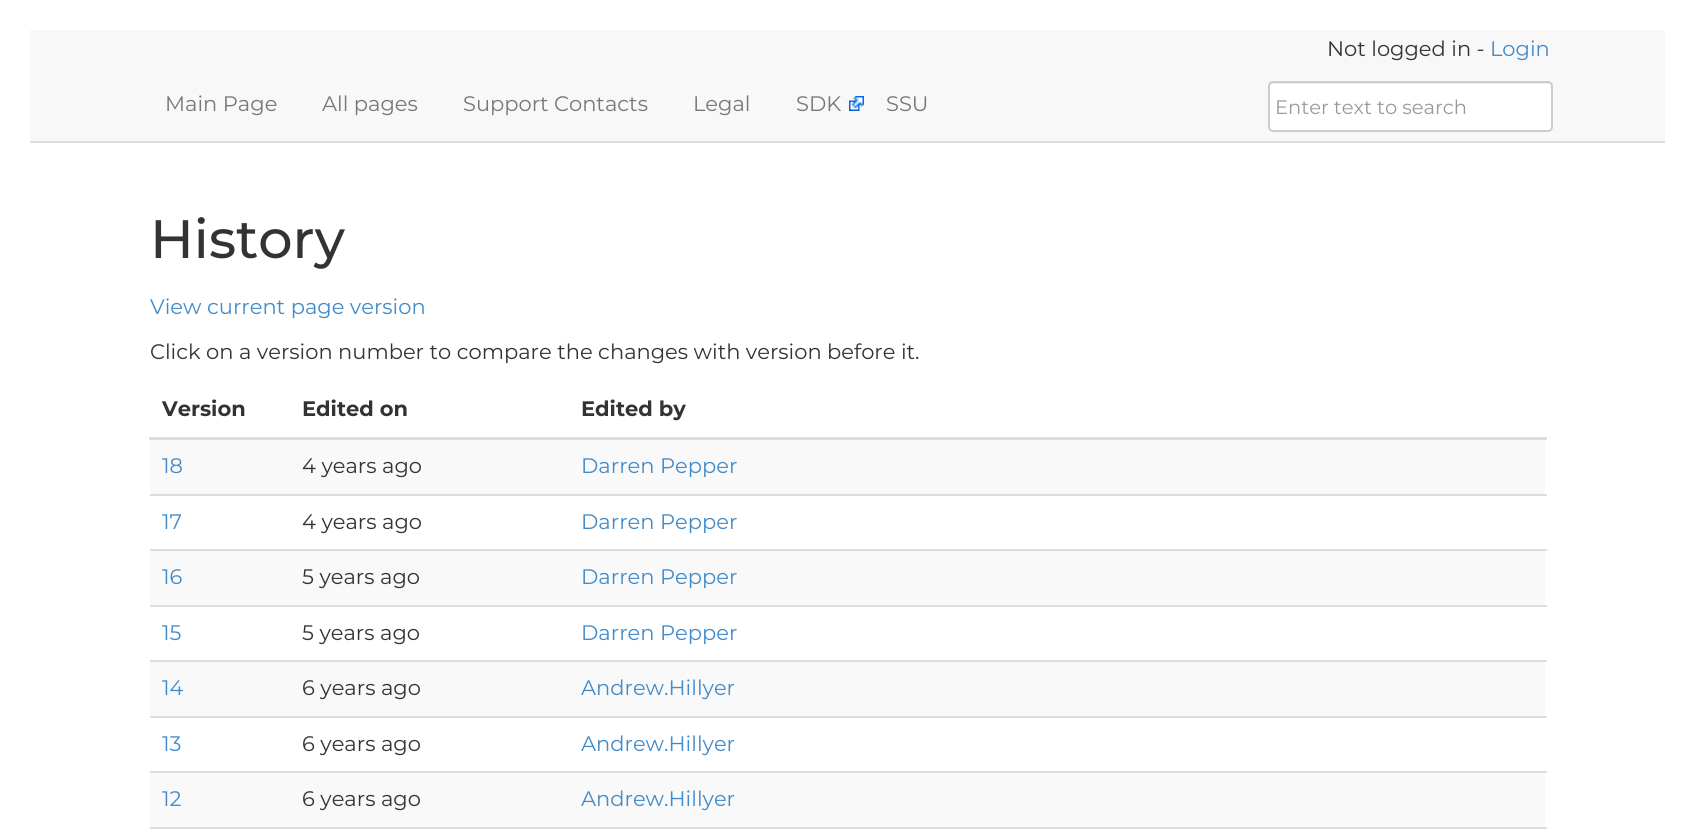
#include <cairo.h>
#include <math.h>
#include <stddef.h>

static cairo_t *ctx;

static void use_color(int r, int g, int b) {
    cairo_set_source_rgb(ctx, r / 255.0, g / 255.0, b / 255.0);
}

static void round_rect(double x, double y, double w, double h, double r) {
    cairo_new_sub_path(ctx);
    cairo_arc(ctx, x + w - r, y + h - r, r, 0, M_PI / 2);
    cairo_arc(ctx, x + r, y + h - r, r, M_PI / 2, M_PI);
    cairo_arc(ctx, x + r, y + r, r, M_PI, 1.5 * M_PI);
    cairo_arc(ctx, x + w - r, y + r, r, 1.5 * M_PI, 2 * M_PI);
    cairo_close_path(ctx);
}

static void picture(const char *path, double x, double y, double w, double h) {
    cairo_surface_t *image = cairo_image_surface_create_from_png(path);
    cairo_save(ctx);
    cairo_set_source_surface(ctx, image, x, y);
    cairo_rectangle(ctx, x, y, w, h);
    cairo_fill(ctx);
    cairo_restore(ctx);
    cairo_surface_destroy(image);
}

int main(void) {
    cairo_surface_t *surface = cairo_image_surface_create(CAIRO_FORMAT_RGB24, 1695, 839);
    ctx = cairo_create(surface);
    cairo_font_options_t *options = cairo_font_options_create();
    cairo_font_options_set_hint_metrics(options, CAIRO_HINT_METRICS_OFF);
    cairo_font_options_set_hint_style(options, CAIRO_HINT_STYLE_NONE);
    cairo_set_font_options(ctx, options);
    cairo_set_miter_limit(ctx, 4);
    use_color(255, 255, 255);
    cairo_paint(ctx);
    use_color(248, 248, 248);
    cairo_rectangle(ctx, 30, 30, 1635, 111);
    cairo_fill(ctx);
    use_color(221, 221, 221);
    cairo_rectangle(ctx, 30, 141, 1635, 2);
    cairo_fill(ctx);
    cairo_select_font_face(ctx, "Montserrat", CAIRO_FONT_SLANT_NORMAL, CAIRO_FONT_WEIGHT_NORMAL);
    cairo_set_font_size(ctx, 21);
    use_color(51, 51, 51);
    cairo_move_to(ctx, 1327, 56);
    cairo_show_text(ctx, "Not logged in -");
    use_color(66, 139, 202);
    cairo_move_to(ctx, 1490, 56);
    cairo_show_text(ctx, "Login");
    use_color(119, 119, 119);
    cairo_move_to(ctx, 165, 111);
    cairo_show_text(ctx, "Main Page");
    cairo_move_to(ctx, 322, 111);
    cairo_show_text(ctx, "All pages");
    cairo_move_to(ctx, 463, 111);
    cairo_show_text(ctx, "Support Contacts");
    cairo_move_to(ctx, 693, 111);
    cairo_show_text(ctx, "Legal");
    picture("img1.png", 849, 96, 15, 15);
    cairo_move_to(ctx, 796, 111);
    cairo_show_text(ctx, "SDK");
    cairo_move_to(ctx, 886, 111);
    cairo_show_text(ctx, "SSU");
    use_color(255, 255, 255);
    round_rect(1268, 81, 285, 51, 5);
    cairo_fill(ctx);
    use_color(236, 236, 236);
    cairo_new_path(ctx);
    cairo_move_to(ctx, 1272, 84);
    cairo_line_to(ctx, 1548, 84);
    cairo_curve_to(ctx, 1550, 84, 1551, 85, 1551, 87);
    cairo_line_to(ctx, 1551, 86);
    cairo_curve_to(ctx, 1551, 84, 1550, 83, 1548, 83);
    cairo_line_to(ctx, 1272, 83);
    cairo_curve_to(ctx, 1270, 83, 1269, 84, 1269, 86);
    cairo_line_to(ctx, 1269, 87);
    cairo_curve_to(ctx, 1269, 85, 1270, 84, 1272, 84);
    cairo_close_path(ctx);
    cairo_fill(ctx);
    round_rect(1269, 82, 283, 49, 4);
    use_color(204, 204, 204);
    cairo_stroke(ctx);
    cairo_set_font_size(ctx, 19.5);
    use_color(153, 153, 153);
    cairo_move_to(ctx, 1275, 114);
    cairo_show_text(ctx, "Enter text to search");
    cairo_select_font_face(ctx, "Montserrat Medium", CAIRO_FONT_SLANT_NORMAL, CAIRO_FONT_WEIGHT_NORMAL);
    cairo_set_font_size(ctx, 54);
    use_color(51, 51, 51);
    cairo_move_to(ctx, 150, 258);
    cairo_show_text(ctx, "History");
    cairo_select_font_face(ctx, "Montserrat", CAIRO_FONT_SLANT_NORMAL, CAIRO_FONT_WEIGHT_NORMAL);
    cairo_set_font_size(ctx, 21);
    use_color(66, 139, 202);
    cairo_move_to(ctx, 150, 314);
    cairo_show_text(ctx, "View current page version");
    use_color(51, 51, 51);
    cairo_move_to(ctx, 150, 359);
    cairo_show_text(ctx, "Click on a version number to compare the changes with version before it.");
    cairo_select_font_face(ctx, "Montserrat", CAIRO_FONT_SLANT_NORMAL, CAIRO_FONT_WEIGHT_BOLD);
    cairo_move_to(ctx, 162, 416);
    cairo_show_text(ctx, "Version");
    cairo_move_to(ctx, 302, 416);
    cairo_show_text(ctx, "Edited on");
    cairo_move_to(ctx, 581, 416);
    cairo_show_text(ctx, "Edited by");
    use_color(221, 221, 221);
    cairo_rectangle(ctx, 149, 437, 1398, 3);
    cairo_fill(ctx);
    use_color(249, 249, 249);
    cairo_rectangle(ctx, 150, 440, 1395, 54);
    cairo_fill(ctx);
    cairo_select_font_face(ctx, "Montserrat", CAIRO_FONT_SLANT_NORMAL, CAIRO_FONT_WEIGHT_NORMAL);
    use_color(66, 139, 202);
    cairo_move_to(ctx, 162, 473);
    cairo_show_text(ctx, "18");
    use_color(51, 51, 51);
    cairo_move_to(ctx, 302, 473);
    cairo_show_text(ctx, "4 years ago");
    use_color(66, 139, 202);
    cairo_move_to(ctx, 581, 473);
    cairo_show_text(ctx, "Darren Pepper");
    use_color(221, 221, 221);
    cairo_rectangle(ctx, 150, 494, 1397, 2);
    cairo_fill(ctx);
    use_color(66, 139, 202);
    cairo_move_to(ctx, 162, 529);
    cairo_show_text(ctx, "17");
    use_color(51, 51, 51);
    cairo_move_to(ctx, 302, 529);
    cairo_show_text(ctx, "4 years ago");
    use_color(66, 139, 202);
    cairo_move_to(ctx, 581, 529);
    cairo_show_text(ctx, "Darren Pepper");
    use_color(221, 221, 221);
    cairo_rectangle(ctx, 150, 549, 1397, 2);
    cairo_fill(ctx);
    use_color(249, 249, 249);
    cairo_rectangle(ctx, 150, 551, 1395, 54);
    cairo_fill(ctx);
    use_color(66, 139, 202);
    cairo_move_to(ctx, 162, 584);
    cairo_show_text(ctx, "16");
    use_color(51, 51, 51);
    cairo_move_to(ctx, 302, 584);
    cairo_show_text(ctx, "5 years ago");
    use_color(66, 139, 202);
    cairo_move_to(ctx, 581, 584);
    cairo_show_text(ctx, "Darren Pepper");
    use_color(221, 221, 221);
    cairo_rectangle(ctx, 150, 605, 1397, 2);
    cairo_fill(ctx);
    use_color(66, 139, 202);
    cairo_move_to(ctx, 162, 640);
    cairo_show_text(ctx, "15");
    use_color(51, 51, 51);
    cairo_move_to(ctx, 302, 640);
    cairo_show_text(ctx, "5 years ago");
    use_color(66, 139, 202);
    cairo_move_to(ctx, 581, 640);
    cairo_show_text(ctx, "Darren Pepper");
    use_color(221, 221, 221);
    cairo_rectangle(ctx, 150, 660, 1397, 2);
    cairo_fill(ctx);
    use_color(249, 249, 249);
    cairo_rectangle(ctx, 150, 662, 1395, 54);
    cairo_fill(ctx);
    use_color(66, 139, 202);
    cairo_move_to(ctx, 162, 695);
    cairo_show_text(ctx, "14");
    use_color(51, 51, 51);
    cairo_move_to(ctx, 302, 695);
    cairo_show_text(ctx, "6 years ago");
    use_color(66, 139, 202);
    cairo_move_to(ctx, 581, 695);
    cairo_show_text(ctx, "Andrew.Hillyer");
    use_color(221, 221, 221);
    cairo_rectangle(ctx, 150, 716, 1397, 2);
    cairo_fill(ctx);
    use_color(66, 139, 202);
    cairo_move_to(ctx, 162, 751);
    cairo_show_text(ctx, "13");
    use_color(51, 51, 51);
    cairo_move_to(ctx, 302, 751);
    cairo_show_text(ctx, "6 years ago");
    use_color(66, 139, 202);
    cairo_move_to(ctx, 581, 751);
    cairo_show_text(ctx, "Andrew.Hillyer");
    use_color(221, 221, 221);
    cairo_rectangle(ctx, 150, 771, 1397, 2);
    cairo_fill(ctx);
    use_color(249, 249, 249);
    cairo_rectangle(ctx, 150, 773, 1395, 54);
    cairo_fill(ctx);
    use_color(66, 139, 202);
    cairo_move_to(ctx, 162, 806);
    cairo_show_text(ctx, "12");
    use_color(51, 51, 51);
    cairo_move_to(ctx, 302, 806);
    cairo_show_text(ctx, "6 years ago");
    use_color(66, 139, 202);
    cairo_move_to(ctx, 581, 806);
    cairo_show_text(ctx, "Andrew.Hillyer");
    use_color(221, 221, 221);
    cairo_rectangle(ctx, 150, 827, 1397, 2);
    cairo_fill(ctx);
    cairo_surface_write_to_png(surface, "result.png");
    cairo_font_options_destroy(options);
    cairo_destroy(ctx);
    cairo_surface_destroy(surface);
    return 0;
}
